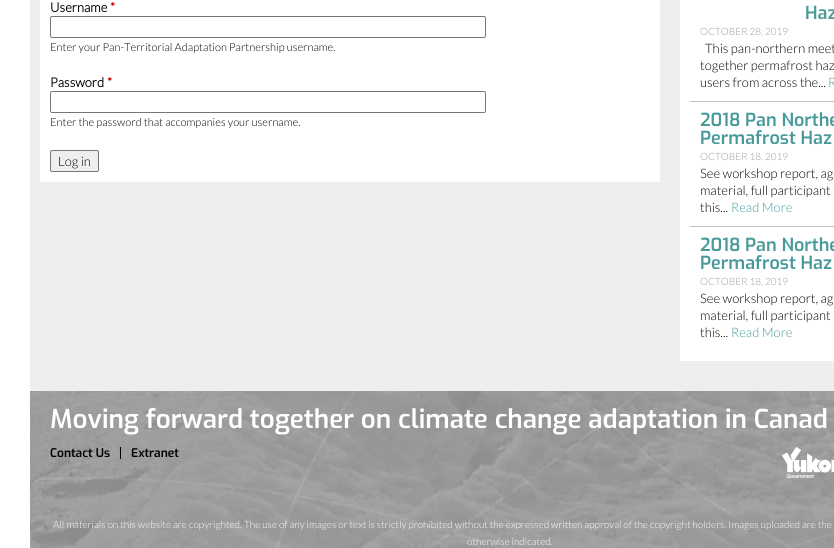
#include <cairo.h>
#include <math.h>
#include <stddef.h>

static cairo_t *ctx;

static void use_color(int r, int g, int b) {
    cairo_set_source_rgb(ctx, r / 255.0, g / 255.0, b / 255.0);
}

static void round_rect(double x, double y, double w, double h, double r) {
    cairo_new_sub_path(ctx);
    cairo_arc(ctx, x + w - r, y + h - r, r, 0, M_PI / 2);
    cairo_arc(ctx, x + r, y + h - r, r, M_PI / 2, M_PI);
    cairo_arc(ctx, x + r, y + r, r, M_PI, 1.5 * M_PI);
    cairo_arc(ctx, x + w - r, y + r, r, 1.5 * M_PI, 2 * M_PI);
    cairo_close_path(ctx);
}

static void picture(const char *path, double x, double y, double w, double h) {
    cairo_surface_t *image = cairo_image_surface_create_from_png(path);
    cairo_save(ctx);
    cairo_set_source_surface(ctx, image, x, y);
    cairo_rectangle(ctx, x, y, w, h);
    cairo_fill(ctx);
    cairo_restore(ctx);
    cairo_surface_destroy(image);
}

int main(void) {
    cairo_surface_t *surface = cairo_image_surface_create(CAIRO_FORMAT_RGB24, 834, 548);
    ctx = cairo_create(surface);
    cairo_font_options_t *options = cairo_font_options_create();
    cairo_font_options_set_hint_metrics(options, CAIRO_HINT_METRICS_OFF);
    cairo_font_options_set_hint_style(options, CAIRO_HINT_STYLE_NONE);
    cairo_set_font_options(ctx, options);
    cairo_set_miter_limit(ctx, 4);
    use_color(255, 255, 255);
    cairo_paint(ctx);
    use_color(238, 238, 238);
    cairo_rectangle(ctx, 30, 0, 804, 391);
    cairo_fill(ctx);
    use_color(255, 255, 255);
    cairo_rectangle(ctx, 40, 0, 620, 182);
    cairo_fill(ctx);
    cairo_select_font_face(ctx, "Lato", CAIRO_FONT_SLANT_NORMAL, CAIRO_FONT_WEIGHT_BOLD);
    cairo_set_font_size(ctx, 13);
    use_color(0, 0, 0);
    cairo_move_to(ctx, 50, 12);
    cairo_show_text(ctx, "Username");
    use_color(204, 0, 0);
    cairo_move_to(ctx, 110, 12);
    cairo_show_text(ctx, "*");
    round_rect(50.5, 16.5, 435, 21, 1.5);
    use_color(118, 118, 118);
    cairo_set_line_width(ctx, 1);
    cairo_stroke(ctx);
    cairo_select_font_face(ctx, "Lato Light", CAIRO_FONT_SLANT_NORMAL, CAIRO_FONT_WEIGHT_NORMAL);
    cairo_set_font_size(ctx, 11.05);
    use_color(0, 0, 0);
    cairo_move_to(ctx, 50, 51);
    cairo_show_text(ctx, "Enter your Pan-Territorial Adaptation Partnership username.");
    cairo_select_font_face(ctx, "Lato", CAIRO_FONT_SLANT_NORMAL, CAIRO_FONT_WEIGHT_BOLD);
    cairo_set_font_size(ctx, 13);
    cairo_move_to(ctx, 50, 87);
    cairo_show_text(ctx, "Password");
    use_color(204, 0, 0);
    cairo_move_to(ctx, 107, 87);
    cairo_show_text(ctx, "*");
    round_rect(50.5, 91.5, 435, 21, 1.5);
    use_color(118, 118, 118);
    cairo_stroke(ctx);
    cairo_select_font_face(ctx, "Lato Light", CAIRO_FONT_SLANT_NORMAL, CAIRO_FONT_WEIGHT_NORMAL);
    cairo_set_font_size(ctx, 11.05);
    use_color(0, 0, 0);
    cairo_move_to(ctx, 50, 126);
    cairo_show_text(ctx, "Enter the password that accompanies your username.");
    use_color(239, 239, 239);
    round_rect(50.5, 150.5, 48, 21, 1.5);
    cairo_fill_preserve(ctx);
    use_color(118, 118, 118);
    cairo_stroke(ctx);
    cairo_set_font_size(ctx, 13);
    use_color(0, 0, 0);
    cairo_move_to(ctx, 58, 166);
    cairo_show_text(ctx, "Log in");
    use_color(255, 255, 255);
    cairo_rectangle(ctx, 680, 0, 154, 361);
    cairo_fill(ctx);
    use_color(194, 194, 196);
    cairo_rectangle(ctx, 690, 101, 144, 1);
    cairo_fill(ctx);
    cairo_select_font_face(ctx, "Exo SemiBold", CAIRO_FONT_SLANT_NORMAL, CAIRO_FONT_WEIGHT_NORMAL);
    cairo_set_font_size(ctx, 18);
    use_color(72, 154, 154);
    cairo_move_to(ctx, 805, 19);
    cairo_show_text(ctx, "Haz");
    cairo_select_font_face(ctx, "Lato Light", CAIRO_FONT_SLANT_NORMAL, CAIRO_FONT_WEIGHT_NORMAL);
    cairo_set_font_size(ctx, 10);
    use_color(153, 153, 153);
    cairo_move_to(ctx, 700, 35);
    cairo_show_text(ctx, "OCTOBER 28, 2019");
    cairo_set_font_size(ctx, 13);
    use_color(0, 0, 0);
    cairo_move_to(ctx, 705, 53);
    cairo_show_text(ctx, "This pan-northern meet");
    cairo_move_to(ctx, 700, 70);
    cairo_show_text(ctx, "together permafrost haz");
    cairo_move_to(ctx, 700, 87);
    cairo_show_text(ctx, "users from across the...");
    use_color(72, 154, 154);
    cairo_move_to(ctx, 828, 87);
    cairo_show_text(ctx, "R");
    use_color(194, 194, 196);
    cairo_rectangle(ctx, 690, 226, 144, 1);
    cairo_fill(ctx);
    cairo_select_font_face(ctx, "Exo SemiBold", CAIRO_FONT_SLANT_NORMAL, CAIRO_FONT_WEIGHT_NORMAL);
    cairo_set_font_size(ctx, 18);
    use_color(72, 154, 154);
    cairo_move_to(ctx, 700, 126);
    cairo_show_text(ctx, "2018 Pan Northe");
    cairo_move_to(ctx, 700, 144);
    cairo_show_text(ctx, "Permafrost Haz");
    cairo_select_font_face(ctx, "Lato Light", CAIRO_FONT_SLANT_NORMAL, CAIRO_FONT_WEIGHT_NORMAL);
    cairo_set_font_size(ctx, 10);
    use_color(153, 153, 153);
    cairo_move_to(ctx, 700, 160);
    cairo_show_text(ctx, "OCTOBER 18, 2019");
    cairo_set_font_size(ctx, 13);
    use_color(0, 0, 0);
    cairo_move_to(ctx, 700, 178);
    cairo_show_text(ctx, "See workshop report, ag");
    cairo_move_to(ctx, 700, 195);
    cairo_show_text(ctx, "material, full participant");
    cairo_move_to(ctx, 700, 212);
    cairo_show_text(ctx, "this...");
    use_color(72, 154, 154);
    cairo_move_to(ctx, 731, 212);
    cairo_show_text(ctx, "Read More");
    cairo_select_font_face(ctx, "Exo SemiBold", CAIRO_FONT_SLANT_NORMAL, CAIRO_FONT_WEIGHT_NORMAL);
    cairo_set_font_size(ctx, 18);
    cairo_move_to(ctx, 700, 251);
    cairo_show_text(ctx, "2018 Pan Northe");
    cairo_move_to(ctx, 700, 269);
    cairo_show_text(ctx, "Permafrost Haz");
    cairo_select_font_face(ctx, "Lato Light", CAIRO_FONT_SLANT_NORMAL, CAIRO_FONT_WEIGHT_NORMAL);
    cairo_set_font_size(ctx, 10);
    use_color(153, 153, 153);
    cairo_move_to(ctx, 700, 285);
    cairo_show_text(ctx, "OCTOBER 18, 2019");
    cairo_set_font_size(ctx, 13);
    use_color(0, 0, 0);
    cairo_move_to(ctx, 700, 303);
    cairo_show_text(ctx, "See workshop report, ag");
    cairo_move_to(ctx, 700, 320);
    cairo_show_text(ctx, "material, full participant");
    cairo_move_to(ctx, 700, 337);
    cairo_show_text(ctx, "this...");
    use_color(72, 154, 154);
    cairo_move_to(ctx, 731, 337);
    cairo_show_text(ctx, "Read More");
    picture("img1.png", 30, 391, 804, 157);
    cairo_select_font_face(ctx, "Exo SemiBold", CAIRO_FONT_SLANT_NORMAL, CAIRO_FONT_WEIGHT_NORMAL);
    cairo_set_font_size(ctx, 26);
    use_color(255, 255, 255);
    cairo_move_to(ctx, 50, 428);
    cairo_show_text(ctx, "Moving forward together on climate change adaptation in Canad");
    use_color(0, 0, 0);
    cairo_rectangle(ctx, 120, 447, 1, 12);
    cairo_fill(ctx);
    cairo_set_font_size(ctx, 12);
    cairo_move_to(ctx, 50, 457);
    cairo_show_text(ctx, "Contact Us");
    cairo_move_to(ctx, 131, 457);
    cairo_show_text(ctx, "Extranet");
    picture("img2.png", 782, 447, 52, 31);
    cairo_select_font_face(ctx, "Lato Light", CAIRO_FONT_SLANT_NORMAL, CAIRO_FONT_WEIGHT_NORMAL);
    cairo_set_font_size(ctx, 10);
    use_color(255, 255, 255);
    cairo_move_to(ctx, 53, 528);
    cairo_show_text(ctx, "All materials on this website are copyrighted. The use of any images or text is strictly prohibited without the expressed written approval of the copyright holders. Images uploaded are the");
    cairo_move_to(ctx, 467, 545);
    cairo_show_text(ctx, "otherwise indicated.");
    cairo_surface_write_to_png(surface, "result.png");
    cairo_font_options_destroy(options);
    cairo_destroy(ctx);
    cairo_surface_destroy(surface);
    return 0;
}
